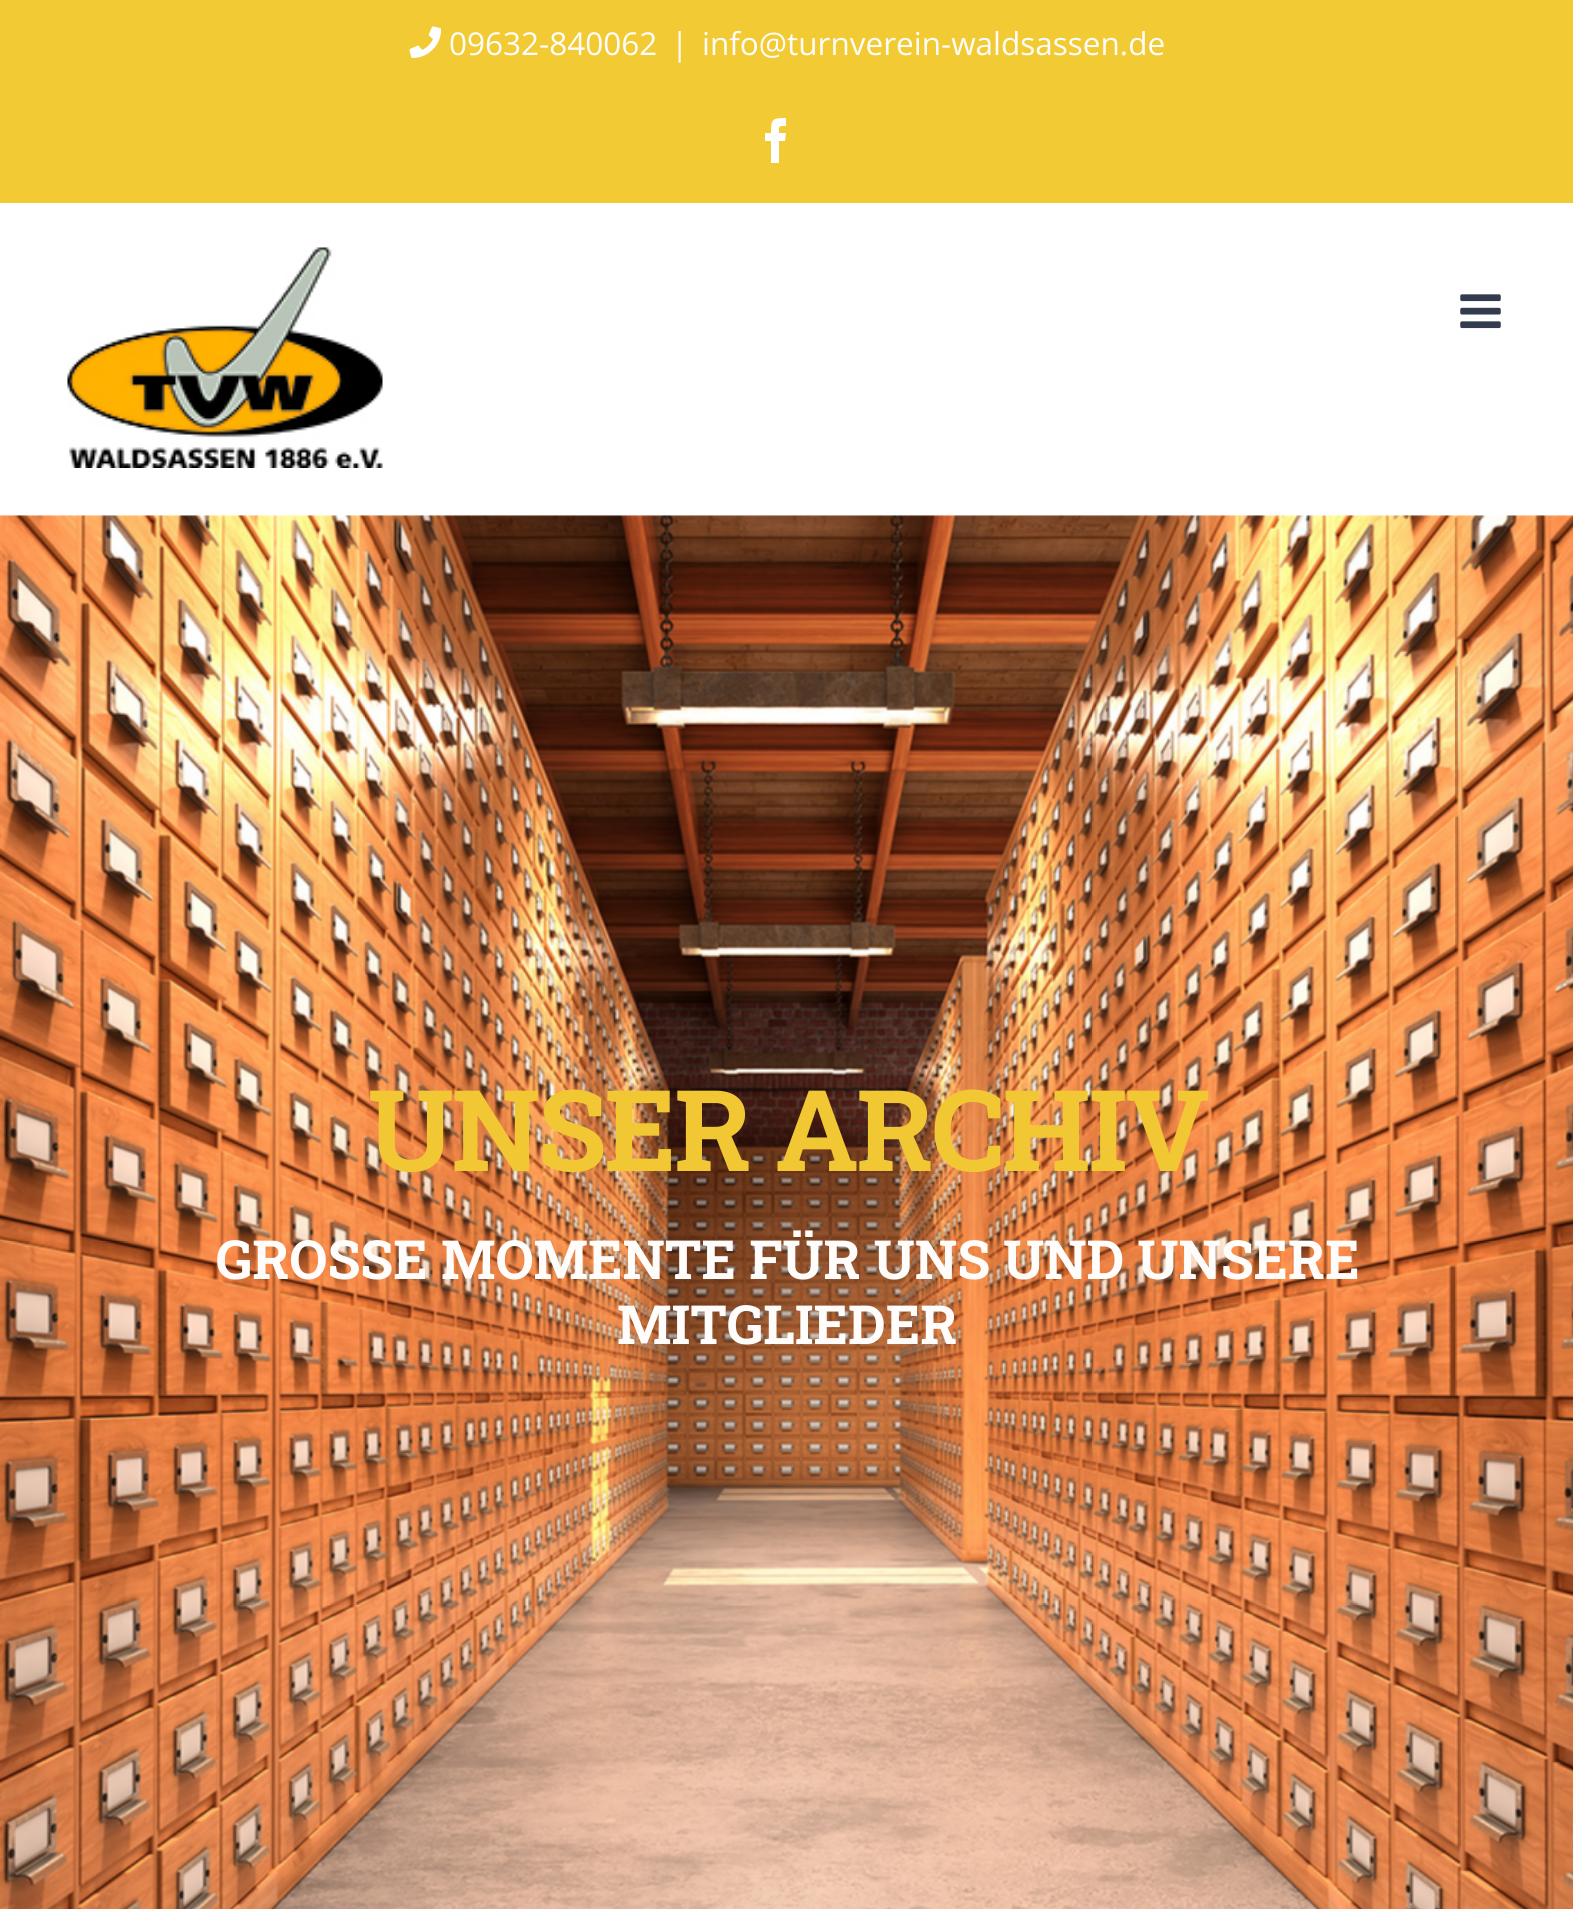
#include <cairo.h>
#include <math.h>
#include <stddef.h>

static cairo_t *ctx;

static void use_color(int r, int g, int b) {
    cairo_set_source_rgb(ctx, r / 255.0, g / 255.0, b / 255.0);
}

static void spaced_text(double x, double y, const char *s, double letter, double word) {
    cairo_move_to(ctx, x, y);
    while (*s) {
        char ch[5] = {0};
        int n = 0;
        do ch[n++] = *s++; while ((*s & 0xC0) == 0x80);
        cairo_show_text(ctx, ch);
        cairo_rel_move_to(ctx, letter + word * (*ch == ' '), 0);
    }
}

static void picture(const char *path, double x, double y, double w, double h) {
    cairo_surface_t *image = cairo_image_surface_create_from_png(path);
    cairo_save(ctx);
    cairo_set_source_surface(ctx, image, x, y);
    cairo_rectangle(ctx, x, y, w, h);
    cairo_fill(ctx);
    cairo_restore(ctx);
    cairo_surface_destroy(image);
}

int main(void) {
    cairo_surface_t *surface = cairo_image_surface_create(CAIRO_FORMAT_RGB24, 1573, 1909);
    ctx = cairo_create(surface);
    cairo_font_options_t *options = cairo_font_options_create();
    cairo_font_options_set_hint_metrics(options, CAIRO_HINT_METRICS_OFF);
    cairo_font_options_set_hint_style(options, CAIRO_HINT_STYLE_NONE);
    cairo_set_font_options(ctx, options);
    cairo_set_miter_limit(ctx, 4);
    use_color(255, 255, 255);
    cairo_paint(ctx);
    use_color(242, 202, 52);
    cairo_rectangle(ctx, 0, 0, 1573, 203);
    cairo_fill(ctx);
    picture("img1.png", 409, 26, 33, 32);
    cairo_select_font_face(ctx, "Open Sans", CAIRO_FONT_SLANT_NORMAL, CAIRO_FONT_WEIGHT_NORMAL);
    cairo_set_font_size(ctx, 31.5);
    use_color(254, 253, 252);
    cairo_move_to(ctx, 449, 55);
    cairo_show_text(ctx, "09632-840062");
    cairo_move_to(ctx, 671, 55);
    cairo_show_text(ctx, "|");
    cairo_move_to(ctx, 702, 55);
    cairo_show_text(ctx, "info@turnverein-waldsassen.de");
    use_color(255, 255, 255);
    cairo_new_path(ctx);
    cairo_move_to(ctx, 779, 163);
    cairo_line_to(ctx, 771, 163);
    cairo_line_to(ctx, 771, 141);
    cairo_line_to(ctx, 765, 141);
    cairo_line_to(ctx, 765, 133);
    cairo_line_to(ctx, 771, 133);
    cairo_curve_to(ctx, 771, 119, 772, 118, 786, 118);
    cairo_line_to(ctx, 786, 126);
    cairo_curve_to(ctx, 778, 126, 779, 126, 779, 133);
    cairo_line_to(ctx, 786, 133);
    cairo_line_to(ctx, 785, 141);
    cairo_line_to(ctx, 779, 141);
    cairo_close_path(ctx);
    cairo_fill(ctx);
    picture("img2.png", 67, 247, 316, 221);
    picture("img3.png", 1460, 294, 41, 35);
    picture("img4.png", 0, 515, 1573, 1394);
    cairo_select_font_face(ctx, "Roboto Slab", CAIRO_FONT_SLANT_NORMAL, CAIRO_FONT_WEIGHT_BOLD);
    cairo_set_font_size(ctx, 113);
    use_color(241, 200, 52);
    spaced_text(368, 1171, "UNSER ARCHIV", -2.25, 0);
    cairo_set_font_size(ctx, 54);
    use_color(254, 253, 252);
    cairo_move_to(ctx, 216, 1279);
    cairo_show_text(ctx, "GROSSE MOMENTE FÜR UNS UND UNSERE");
    cairo_move_to(ctx, 617, 1344);
    cairo_show_text(ctx, "MITGLIEDER");
    cairo_surface_write_to_png(surface, "result.png");
    cairo_font_options_destroy(options);
    cairo_destroy(ctx);
    cairo_surface_destroy(surface);
    return 0;
}
